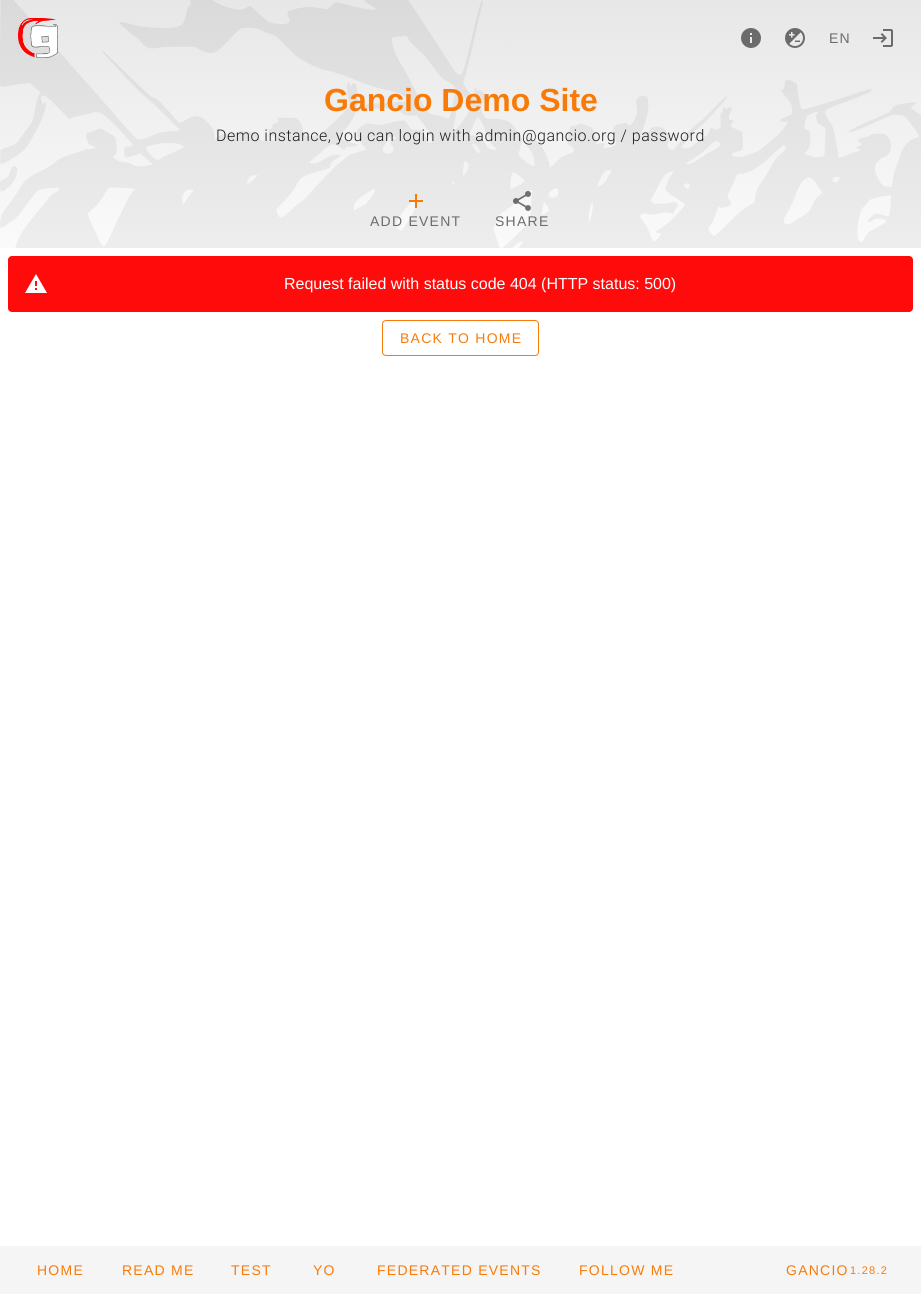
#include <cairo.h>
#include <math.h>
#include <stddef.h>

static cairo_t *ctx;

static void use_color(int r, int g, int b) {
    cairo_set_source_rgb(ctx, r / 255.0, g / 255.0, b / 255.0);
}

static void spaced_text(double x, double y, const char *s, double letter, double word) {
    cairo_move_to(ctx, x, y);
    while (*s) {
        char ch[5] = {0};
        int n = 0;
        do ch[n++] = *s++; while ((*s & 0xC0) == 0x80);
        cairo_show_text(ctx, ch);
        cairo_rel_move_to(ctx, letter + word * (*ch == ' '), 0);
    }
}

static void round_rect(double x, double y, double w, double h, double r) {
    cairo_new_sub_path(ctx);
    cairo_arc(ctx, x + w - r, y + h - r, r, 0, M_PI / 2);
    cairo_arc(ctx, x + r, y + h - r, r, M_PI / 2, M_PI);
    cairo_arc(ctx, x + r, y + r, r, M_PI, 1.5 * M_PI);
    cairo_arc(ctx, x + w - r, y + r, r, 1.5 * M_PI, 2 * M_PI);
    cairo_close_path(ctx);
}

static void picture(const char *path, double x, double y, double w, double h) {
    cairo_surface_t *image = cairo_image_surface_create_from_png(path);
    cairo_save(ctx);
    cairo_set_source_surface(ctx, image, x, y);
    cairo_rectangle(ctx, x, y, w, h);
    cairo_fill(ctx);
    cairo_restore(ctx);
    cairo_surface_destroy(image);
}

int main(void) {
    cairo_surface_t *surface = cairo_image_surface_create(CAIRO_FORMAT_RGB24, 921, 1294);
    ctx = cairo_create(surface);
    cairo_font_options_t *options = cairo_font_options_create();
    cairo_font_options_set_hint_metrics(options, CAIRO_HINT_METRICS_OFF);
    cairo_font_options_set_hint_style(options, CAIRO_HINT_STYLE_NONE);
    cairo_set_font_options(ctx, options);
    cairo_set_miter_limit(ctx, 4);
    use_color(255, 255, 255);
    cairo_paint(ctx);
    picture("img1.png", 0, 0, 921, 248);
    picture("img2.png", 18, 18, 40, 40);
    picture("img3.png", 741, 28, 20, 20);
    picture("img4.png", 785, 28, 20, 20);
    cairo_select_font_face(ctx, "Liberation Sans", CAIRO_FONT_SLANT_NORMAL, CAIRO_FONT_WEIGHT_NORMAL);
    cairo_set_font_size(ctx, 14);
    use_color(108, 108, 108);
    spaced_text(829, 43, "EN", 1.25, 0);
    picture("img5.png", 873, 29, 20, 18);
    cairo_select_font_face(ctx, "Liberation Sans", CAIRO_FONT_SLANT_NORMAL, CAIRO_FONT_WEIGHT_BOLD);
    cairo_set_font_size(ctx, 32);
    use_color(248, 123, 10);
    cairo_move_to(ctx, 324, 111);
    cairo_show_text(ctx, "Gancio Demo Site");
    cairo_select_font_face(ctx, "Roboto Light", CAIRO_FONT_SLANT_NORMAL, CAIRO_FONT_WEIGHT_NORMAL);
    cairo_set_font_size(ctx, 16);
    use_color(30, 30, 30);
    spaced_text(216, 141, "Demo instance, you can login with admin@gancio.org / password", 0.5, 0);
    picture("img6.png", 409, 194, 14, 14);
    cairo_select_font_face(ctx, "Liberation Sans", CAIRO_FONT_SLANT_NORMAL, CAIRO_FONT_WEIGHT_NORMAL);
    cairo_set_font_size(ctx, 14);
    use_color(108, 108, 108);
    spaced_text(370, 226, "ADD EVENT", 1.25, 0);
    picture("img7.png", 513, 191, 18, 20);
    spaced_text(495, 226, "SHARE", 1.25, 0);
    use_color(255, 11, 11);
    round_rect(8, 256, 905, 56, 4);
    cairo_fill(ctx);
    picture("img8.png", 25, 274, 22, 19);
    cairo_set_font_size(ctx, 16);
    use_color(255, 255, 255);
    cairo_move_to(ctx, 284, 289);
    cairo_show_text(ctx, "Request failed with status code 404 (HTTP status: 500)");
    round_rect(382.5, 320.5, 156, 35, 3.5);
    use_color(248, 123, 10);
    cairo_set_line_width(ctx, 1);
    cairo_stroke(ctx);
    cairo_set_font_size(ctx, 14);
    spaced_text(400, 343, "BACK TO HOME", 1.25, 0);
    use_color(245, 245, 245);
    cairo_rectangle(ctx, 0, 1246, 921, 48);
    cairo_fill(ctx);
    use_color(248, 123, 10);
    spaced_text(37, 1275, "HOME", 1.25, 0);
    spaced_text(122, 1275, "READ ME", 1.25, 0);
    spaced_text(231, 1275, "TEST", 1.25, 0);
    spaced_text(313, 1275, "YO", 1.25, 0);
    spaced_text(377, 1275, "FEDERATED EVENTS", 1.25, 0);
    spaced_text(579, 1275, "FOLLOW ME", 1.25, 0);
    spaced_text(786, 1275, "GANCIO", 1.25, 0);
    cairo_set_font_size(ctx, 11);
    spaced_text(850, 1274, "1.28.2", 1.25, 0);
    cairo_surface_write_to_png(surface, "result.png");
    cairo_font_options_destroy(options);
    cairo_destroy(ctx);
    cairo_surface_destroy(surface);
    return 0;
}
